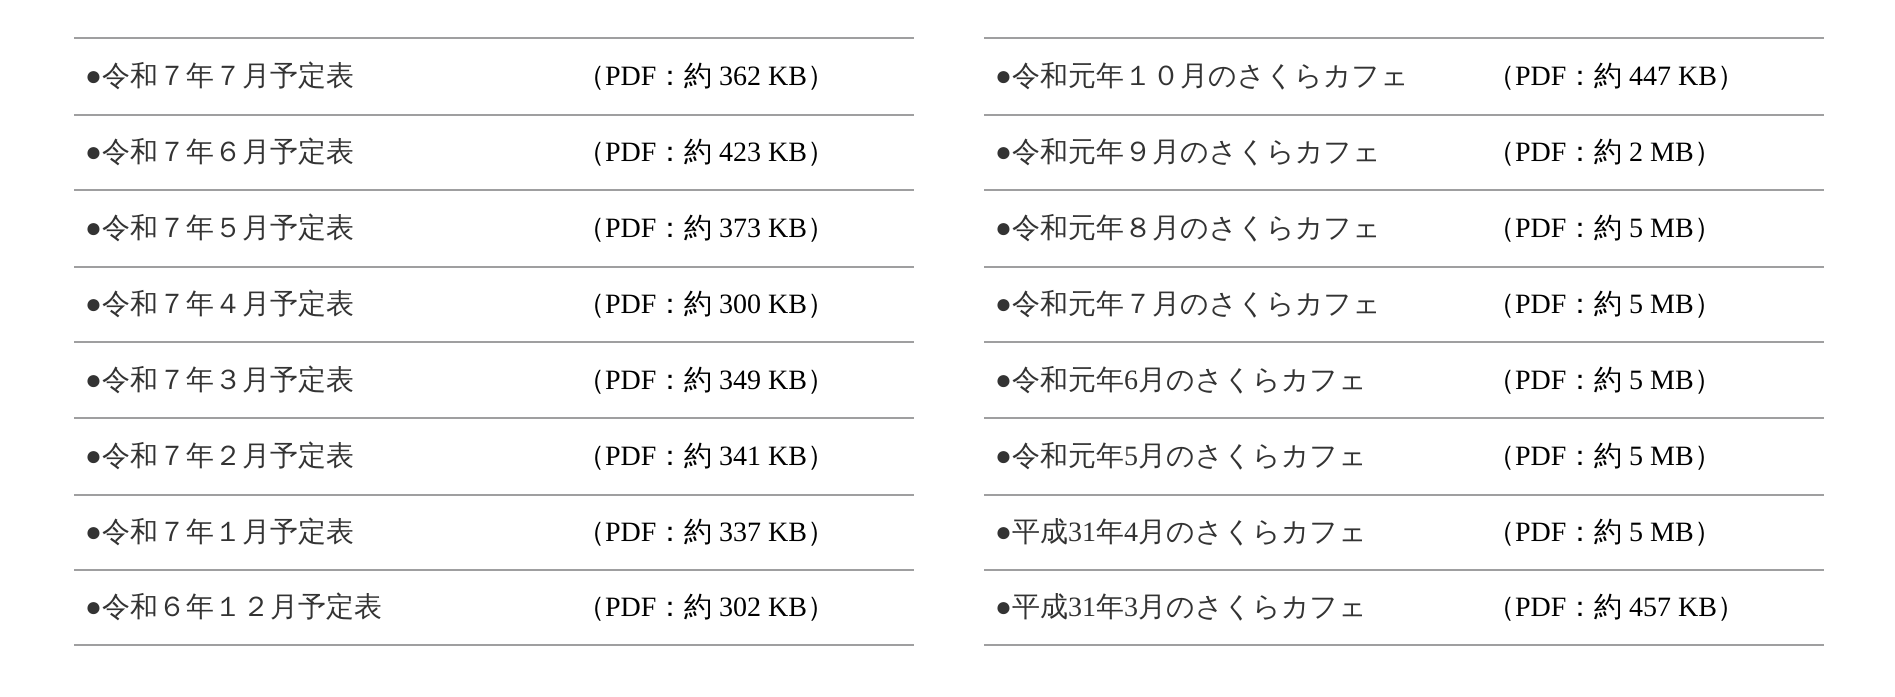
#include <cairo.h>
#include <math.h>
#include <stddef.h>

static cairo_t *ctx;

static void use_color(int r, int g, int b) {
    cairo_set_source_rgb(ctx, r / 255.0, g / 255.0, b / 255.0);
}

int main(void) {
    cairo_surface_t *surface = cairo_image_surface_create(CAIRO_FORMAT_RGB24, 1895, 697);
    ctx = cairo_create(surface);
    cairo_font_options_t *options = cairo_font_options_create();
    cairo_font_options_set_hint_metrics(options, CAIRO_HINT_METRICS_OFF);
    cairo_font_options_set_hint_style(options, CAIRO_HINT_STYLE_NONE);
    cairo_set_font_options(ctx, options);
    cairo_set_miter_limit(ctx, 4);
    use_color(255, 255, 255);
    cairo_paint(ctx);
    use_color(159, 159, 160);
    cairo_rectangle(ctx, 74, 37, 840, 2);
    cairo_fill(ctx);
    cairo_rectangle(ctx, 74, 114, 840, 2);
    cairo_fill(ctx);
    cairo_select_font_face(ctx, "Liberation Serif", CAIRO_FONT_SLANT_NORMAL, CAIRO_FONT_WEIGHT_NORMAL);
    cairo_set_font_size(ctx, 28);
    use_color(51, 51, 51);
    cairo_move_to(ctx, 85, 85);
    cairo_show_text(ctx, "●");
    cairo_select_font_face(ctx, "WenQuanYi Zen Hei Medium", CAIRO_FONT_SLANT_NORMAL, CAIRO_FONT_WEIGHT_NORMAL);
    cairo_move_to(ctx, 102, 85);
    cairo_show_text(ctx, "令和７年７月予定表");
    use_color(0, 0, 0);
    cairo_move_to(ctx, 577, 85);
    cairo_show_text(ctx, "（");
    cairo_select_font_face(ctx, "Liberation Serif", CAIRO_FONT_SLANT_NORMAL, CAIRO_FONT_WEIGHT_NORMAL);
    cairo_move_to(ctx, 605, 85);
    cairo_show_text(ctx, "PDF");
    cairo_select_font_face(ctx, "WenQuanYi Zen Hei Medium", CAIRO_FONT_SLANT_NORMAL, CAIRO_FONT_WEIGHT_NORMAL);
    cairo_move_to(ctx, 656, 85);
    cairo_show_text(ctx, "：約");
    cairo_select_font_face(ctx, "Liberation Serif", CAIRO_FONT_SLANT_NORMAL, CAIRO_FONT_WEIGHT_NORMAL);
    cairo_move_to(ctx, 719, 85);
    cairo_show_text(ctx, "362 KB");
    cairo_select_font_face(ctx, "WenQuanYi Zen Hei Medium", CAIRO_FONT_SLANT_NORMAL, CAIRO_FONT_WEIGHT_NORMAL);
    cairo_move_to(ctx, 807, 85);
    cairo_show_text(ctx, "）");
    use_color(159, 159, 160);
    cairo_rectangle(ctx, 74, 189, 840, 2);
    cairo_fill(ctx);
    cairo_select_font_face(ctx, "Liberation Serif", CAIRO_FONT_SLANT_NORMAL, CAIRO_FONT_WEIGHT_NORMAL);
    use_color(51, 51, 51);
    cairo_move_to(ctx, 85, 161);
    cairo_show_text(ctx, "●");
    cairo_select_font_face(ctx, "WenQuanYi Zen Hei Medium", CAIRO_FONT_SLANT_NORMAL, CAIRO_FONT_WEIGHT_NORMAL);
    cairo_move_to(ctx, 102, 161);
    cairo_show_text(ctx, "令和７年６月予定表");
    use_color(0, 0, 0);
    cairo_move_to(ctx, 577, 161);
    cairo_show_text(ctx, "（");
    cairo_select_font_face(ctx, "Liberation Serif", CAIRO_FONT_SLANT_NORMAL, CAIRO_FONT_WEIGHT_NORMAL);
    cairo_move_to(ctx, 605, 161);
    cairo_show_text(ctx, "PDF");
    cairo_select_font_face(ctx, "WenQuanYi Zen Hei Medium", CAIRO_FONT_SLANT_NORMAL, CAIRO_FONT_WEIGHT_NORMAL);
    cairo_move_to(ctx, 656, 161);
    cairo_show_text(ctx, "：約");
    cairo_select_font_face(ctx, "Liberation Serif", CAIRO_FONT_SLANT_NORMAL, CAIRO_FONT_WEIGHT_NORMAL);
    cairo_move_to(ctx, 719, 161);
    cairo_show_text(ctx, "423 KB");
    cairo_select_font_face(ctx, "WenQuanYi Zen Hei Medium", CAIRO_FONT_SLANT_NORMAL, CAIRO_FONT_WEIGHT_NORMAL);
    cairo_move_to(ctx, 807, 161);
    cairo_show_text(ctx, "）");
    use_color(159, 159, 160);
    cairo_rectangle(ctx, 74, 266, 840, 2);
    cairo_fill(ctx);
    cairo_select_font_face(ctx, "Liberation Serif", CAIRO_FONT_SLANT_NORMAL, CAIRO_FONT_WEIGHT_NORMAL);
    use_color(51, 51, 51);
    cairo_move_to(ctx, 85, 237);
    cairo_show_text(ctx, "●");
    cairo_select_font_face(ctx, "WenQuanYi Zen Hei Medium", CAIRO_FONT_SLANT_NORMAL, CAIRO_FONT_WEIGHT_NORMAL);
    cairo_move_to(ctx, 102, 237);
    cairo_show_text(ctx, "令和７年５月予定表");
    use_color(0, 0, 0);
    cairo_move_to(ctx, 577, 237);
    cairo_show_text(ctx, "（");
    cairo_select_font_face(ctx, "Liberation Serif", CAIRO_FONT_SLANT_NORMAL, CAIRO_FONT_WEIGHT_NORMAL);
    cairo_move_to(ctx, 605, 237);
    cairo_show_text(ctx, "PDF");
    cairo_select_font_face(ctx, "WenQuanYi Zen Hei Medium", CAIRO_FONT_SLANT_NORMAL, CAIRO_FONT_WEIGHT_NORMAL);
    cairo_move_to(ctx, 656, 237);
    cairo_show_text(ctx, "：約");
    cairo_select_font_face(ctx, "Liberation Serif", CAIRO_FONT_SLANT_NORMAL, CAIRO_FONT_WEIGHT_NORMAL);
    cairo_move_to(ctx, 719, 237);
    cairo_show_text(ctx, "373 KB");
    cairo_select_font_face(ctx, "WenQuanYi Zen Hei Medium", CAIRO_FONT_SLANT_NORMAL, CAIRO_FONT_WEIGHT_NORMAL);
    cairo_move_to(ctx, 807, 237);
    cairo_show_text(ctx, "）");
    use_color(159, 159, 160);
    cairo_rectangle(ctx, 74, 341, 840, 2);
    cairo_fill(ctx);
    cairo_select_font_face(ctx, "Liberation Serif", CAIRO_FONT_SLANT_NORMAL, CAIRO_FONT_WEIGHT_NORMAL);
    use_color(51, 51, 51);
    cairo_move_to(ctx, 85, 313);
    cairo_show_text(ctx, "●");
    cairo_select_font_face(ctx, "WenQuanYi Zen Hei Medium", CAIRO_FONT_SLANT_NORMAL, CAIRO_FONT_WEIGHT_NORMAL);
    cairo_move_to(ctx, 102, 313);
    cairo_show_text(ctx, "令和７年４月予定表");
    use_color(0, 0, 0);
    cairo_move_to(ctx, 577, 313);
    cairo_show_text(ctx, "（");
    cairo_select_font_face(ctx, "Liberation Serif", CAIRO_FONT_SLANT_NORMAL, CAIRO_FONT_WEIGHT_NORMAL);
    cairo_move_to(ctx, 605, 313);
    cairo_show_text(ctx, "PDF");
    cairo_select_font_face(ctx, "WenQuanYi Zen Hei Medium", CAIRO_FONT_SLANT_NORMAL, CAIRO_FONT_WEIGHT_NORMAL);
    cairo_move_to(ctx, 656, 313);
    cairo_show_text(ctx, "：約");
    cairo_select_font_face(ctx, "Liberation Serif", CAIRO_FONT_SLANT_NORMAL, CAIRO_FONT_WEIGHT_NORMAL);
    cairo_move_to(ctx, 719, 313);
    cairo_show_text(ctx, "300 KB");
    cairo_select_font_face(ctx, "WenQuanYi Zen Hei Medium", CAIRO_FONT_SLANT_NORMAL, CAIRO_FONT_WEIGHT_NORMAL);
    cairo_move_to(ctx, 807, 313);
    cairo_show_text(ctx, "）");
    use_color(159, 159, 160);
    cairo_rectangle(ctx, 74, 417, 840, 2);
    cairo_fill(ctx);
    cairo_select_font_face(ctx, "Liberation Serif", CAIRO_FONT_SLANT_NORMAL, CAIRO_FONT_WEIGHT_NORMAL);
    use_color(51, 51, 51);
    cairo_move_to(ctx, 85, 389);
    cairo_show_text(ctx, "●");
    cairo_select_font_face(ctx, "WenQuanYi Zen Hei Medium", CAIRO_FONT_SLANT_NORMAL, CAIRO_FONT_WEIGHT_NORMAL);
    cairo_move_to(ctx, 102, 389);
    cairo_show_text(ctx, "令和７年３月予定表");
    use_color(0, 0, 0);
    cairo_move_to(ctx, 577, 389);
    cairo_show_text(ctx, "（");
    cairo_select_font_face(ctx, "Liberation Serif", CAIRO_FONT_SLANT_NORMAL, CAIRO_FONT_WEIGHT_NORMAL);
    cairo_move_to(ctx, 605, 389);
    cairo_show_text(ctx, "PDF");
    cairo_select_font_face(ctx, "WenQuanYi Zen Hei Medium", CAIRO_FONT_SLANT_NORMAL, CAIRO_FONT_WEIGHT_NORMAL);
    cairo_move_to(ctx, 656, 389);
    cairo_show_text(ctx, "：約");
    cairo_select_font_face(ctx, "Liberation Serif", CAIRO_FONT_SLANT_NORMAL, CAIRO_FONT_WEIGHT_NORMAL);
    cairo_move_to(ctx, 719, 389);
    cairo_show_text(ctx, "349 KB");
    cairo_select_font_face(ctx, "WenQuanYi Zen Hei Medium", CAIRO_FONT_SLANT_NORMAL, CAIRO_FONT_WEIGHT_NORMAL);
    cairo_move_to(ctx, 807, 389);
    cairo_show_text(ctx, "）");
    use_color(159, 159, 160);
    cairo_rectangle(ctx, 74, 494, 840, 2);
    cairo_fill(ctx);
    cairo_select_font_face(ctx, "Liberation Serif", CAIRO_FONT_SLANT_NORMAL, CAIRO_FONT_WEIGHT_NORMAL);
    use_color(51, 51, 51);
    cairo_move_to(ctx, 85, 465);
    cairo_show_text(ctx, "●");
    cairo_select_font_face(ctx, "WenQuanYi Zen Hei Medium", CAIRO_FONT_SLANT_NORMAL, CAIRO_FONT_WEIGHT_NORMAL);
    cairo_move_to(ctx, 102, 465);
    cairo_show_text(ctx, "令和７年２月予定表");
    use_color(0, 0, 0);
    cairo_move_to(ctx, 577, 465);
    cairo_show_text(ctx, "（");
    cairo_select_font_face(ctx, "Liberation Serif", CAIRO_FONT_SLANT_NORMAL, CAIRO_FONT_WEIGHT_NORMAL);
    cairo_move_to(ctx, 605, 465);
    cairo_show_text(ctx, "PDF");
    cairo_select_font_face(ctx, "WenQuanYi Zen Hei Medium", CAIRO_FONT_SLANT_NORMAL, CAIRO_FONT_WEIGHT_NORMAL);
    cairo_move_to(ctx, 656, 465);
    cairo_show_text(ctx, "：約");
    cairo_select_font_face(ctx, "Liberation Serif", CAIRO_FONT_SLANT_NORMAL, CAIRO_FONT_WEIGHT_NORMAL);
    cairo_move_to(ctx, 719, 465);
    cairo_show_text(ctx, "341 KB");
    cairo_select_font_face(ctx, "WenQuanYi Zen Hei Medium", CAIRO_FONT_SLANT_NORMAL, CAIRO_FONT_WEIGHT_NORMAL);
    cairo_move_to(ctx, 807, 465);
    cairo_show_text(ctx, "）");
    use_color(159, 159, 160);
    cairo_rectangle(ctx, 74, 569, 840, 2);
    cairo_fill(ctx);
    cairo_select_font_face(ctx, "Liberation Serif", CAIRO_FONT_SLANT_NORMAL, CAIRO_FONT_WEIGHT_NORMAL);
    use_color(51, 51, 51);
    cairo_move_to(ctx, 85, 541);
    cairo_show_text(ctx, "●");
    cairo_select_font_face(ctx, "WenQuanYi Zen Hei Medium", CAIRO_FONT_SLANT_NORMAL, CAIRO_FONT_WEIGHT_NORMAL);
    cairo_move_to(ctx, 102, 541);
    cairo_show_text(ctx, "令和７年１月予定表");
    use_color(0, 0, 0);
    cairo_move_to(ctx, 577, 541);
    cairo_show_text(ctx, "（");
    cairo_select_font_face(ctx, "Liberation Serif", CAIRO_FONT_SLANT_NORMAL, CAIRO_FONT_WEIGHT_NORMAL);
    cairo_move_to(ctx, 605, 541);
    cairo_show_text(ctx, "PDF");
    cairo_select_font_face(ctx, "WenQuanYi Zen Hei Medium", CAIRO_FONT_SLANT_NORMAL, CAIRO_FONT_WEIGHT_NORMAL);
    cairo_move_to(ctx, 656, 541);
    cairo_show_text(ctx, "：約");
    cairo_select_font_face(ctx, "Liberation Serif", CAIRO_FONT_SLANT_NORMAL, CAIRO_FONT_WEIGHT_NORMAL);
    cairo_move_to(ctx, 719, 541);
    cairo_show_text(ctx, "337 KB");
    cairo_select_font_face(ctx, "WenQuanYi Zen Hei Medium", CAIRO_FONT_SLANT_NORMAL, CAIRO_FONT_WEIGHT_NORMAL);
    cairo_move_to(ctx, 807, 541);
    cairo_show_text(ctx, "）");
    use_color(159, 159, 160);
    cairo_rectangle(ctx, 74, 644, 840, 2);
    cairo_fill(ctx);
    cairo_select_font_face(ctx, "Liberation Serif", CAIRO_FONT_SLANT_NORMAL, CAIRO_FONT_WEIGHT_NORMAL);
    use_color(51, 51, 51);
    cairo_move_to(ctx, 85, 616);
    cairo_show_text(ctx, "●");
    cairo_select_font_face(ctx, "WenQuanYi Zen Hei Medium", CAIRO_FONT_SLANT_NORMAL, CAIRO_FONT_WEIGHT_NORMAL);
    cairo_move_to(ctx, 102, 616);
    cairo_show_text(ctx, "令和６年１２月予定表");
    use_color(0, 0, 0);
    cairo_move_to(ctx, 577, 616);
    cairo_show_text(ctx, "（");
    cairo_select_font_face(ctx, "Liberation Serif", CAIRO_FONT_SLANT_NORMAL, CAIRO_FONT_WEIGHT_NORMAL);
    cairo_move_to(ctx, 605, 616);
    cairo_show_text(ctx, "PDF");
    cairo_select_font_face(ctx, "WenQuanYi Zen Hei Medium", CAIRO_FONT_SLANT_NORMAL, CAIRO_FONT_WEIGHT_NORMAL);
    cairo_move_to(ctx, 656, 616);
    cairo_show_text(ctx, "：約");
    cairo_select_font_face(ctx, "Liberation Serif", CAIRO_FONT_SLANT_NORMAL, CAIRO_FONT_WEIGHT_NORMAL);
    cairo_move_to(ctx, 719, 616);
    cairo_show_text(ctx, "302 KB");
    cairo_select_font_face(ctx, "WenQuanYi Zen Hei Medium", CAIRO_FONT_SLANT_NORMAL, CAIRO_FONT_WEIGHT_NORMAL);
    cairo_move_to(ctx, 807, 616);
    cairo_show_text(ctx, "）");
    use_color(159, 159, 160);
    cairo_rectangle(ctx, 984, 37, 840, 2);
    cairo_fill(ctx);
    cairo_rectangle(ctx, 984, 114, 840, 2);
    cairo_fill(ctx);
    cairo_select_font_face(ctx, "Liberation Serif", CAIRO_FONT_SLANT_NORMAL, CAIRO_FONT_WEIGHT_NORMAL);
    use_color(51, 51, 51);
    cairo_move_to(ctx, 995, 85);
    cairo_show_text(ctx, "●");
    cairo_select_font_face(ctx, "WenQuanYi Zen Hei Medium", CAIRO_FONT_SLANT_NORMAL, CAIRO_FONT_WEIGHT_NORMAL);
    cairo_move_to(ctx, 1012, 85);
    cairo_show_text(ctx, "令和元年１０月のさくらカフェ");
    use_color(0, 0, 0);
    cairo_move_to(ctx, 1487, 85);
    cairo_show_text(ctx, "（");
    cairo_select_font_face(ctx, "Liberation Serif", CAIRO_FONT_SLANT_NORMAL, CAIRO_FONT_WEIGHT_NORMAL);
    cairo_move_to(ctx, 1515, 85);
    cairo_show_text(ctx, "PDF");
    cairo_select_font_face(ctx, "WenQuanYi Zen Hei Medium", CAIRO_FONT_SLANT_NORMAL, CAIRO_FONT_WEIGHT_NORMAL);
    cairo_move_to(ctx, 1566, 85);
    cairo_show_text(ctx, "：約");
    cairo_select_font_face(ctx, "Liberation Serif", CAIRO_FONT_SLANT_NORMAL, CAIRO_FONT_WEIGHT_NORMAL);
    cairo_move_to(ctx, 1629, 85);
    cairo_show_text(ctx, "447 KB");
    cairo_select_font_face(ctx, "WenQuanYi Zen Hei Medium", CAIRO_FONT_SLANT_NORMAL, CAIRO_FONT_WEIGHT_NORMAL);
    cairo_move_to(ctx, 1717, 85);
    cairo_show_text(ctx, "）");
    use_color(159, 159, 160);
    cairo_rectangle(ctx, 984, 189, 840, 2);
    cairo_fill(ctx);
    cairo_select_font_face(ctx, "Liberation Serif", CAIRO_FONT_SLANT_NORMAL, CAIRO_FONT_WEIGHT_NORMAL);
    use_color(51, 51, 51);
    cairo_move_to(ctx, 995, 161);
    cairo_show_text(ctx, "●");
    cairo_select_font_face(ctx, "WenQuanYi Zen Hei Medium", CAIRO_FONT_SLANT_NORMAL, CAIRO_FONT_WEIGHT_NORMAL);
    cairo_move_to(ctx, 1012, 161);
    cairo_show_text(ctx, "令和元年９月のさくらカフェ");
    use_color(0, 0, 0);
    cairo_move_to(ctx, 1487, 161);
    cairo_show_text(ctx, "（");
    cairo_select_font_face(ctx, "Liberation Serif", CAIRO_FONT_SLANT_NORMAL, CAIRO_FONT_WEIGHT_NORMAL);
    cairo_move_to(ctx, 1515, 161);
    cairo_show_text(ctx, "PDF");
    cairo_select_font_face(ctx, "WenQuanYi Zen Hei Medium", CAIRO_FONT_SLANT_NORMAL, CAIRO_FONT_WEIGHT_NORMAL);
    cairo_move_to(ctx, 1566, 161);
    cairo_show_text(ctx, "：約");
    cairo_select_font_face(ctx, "Liberation Serif", CAIRO_FONT_SLANT_NORMAL, CAIRO_FONT_WEIGHT_NORMAL);
    cairo_move_to(ctx, 1629, 161);
    cairo_show_text(ctx, "2 MB");
    cairo_select_font_face(ctx, "WenQuanYi Zen Hei Medium", CAIRO_FONT_SLANT_NORMAL, CAIRO_FONT_WEIGHT_NORMAL);
    cairo_move_to(ctx, 1694, 161);
    cairo_show_text(ctx, "）");
    use_color(159, 159, 160);
    cairo_rectangle(ctx, 984, 266, 840, 2);
    cairo_fill(ctx);
    cairo_select_font_face(ctx, "Liberation Serif", CAIRO_FONT_SLANT_NORMAL, CAIRO_FONT_WEIGHT_NORMAL);
    use_color(51, 51, 51);
    cairo_move_to(ctx, 995, 237);
    cairo_show_text(ctx, "●");
    cairo_select_font_face(ctx, "WenQuanYi Zen Hei Medium", CAIRO_FONT_SLANT_NORMAL, CAIRO_FONT_WEIGHT_NORMAL);
    cairo_move_to(ctx, 1012, 237);
    cairo_show_text(ctx, "令和元年８月のさくらカフェ");
    use_color(0, 0, 0);
    cairo_move_to(ctx, 1487, 237);
    cairo_show_text(ctx, "（");
    cairo_select_font_face(ctx, "Liberation Serif", CAIRO_FONT_SLANT_NORMAL, CAIRO_FONT_WEIGHT_NORMAL);
    cairo_move_to(ctx, 1515, 237);
    cairo_show_text(ctx, "PDF");
    cairo_select_font_face(ctx, "WenQuanYi Zen Hei Medium", CAIRO_FONT_SLANT_NORMAL, CAIRO_FONT_WEIGHT_NORMAL);
    cairo_move_to(ctx, 1566, 237);
    cairo_show_text(ctx, "：約");
    cairo_select_font_face(ctx, "Liberation Serif", CAIRO_FONT_SLANT_NORMAL, CAIRO_FONT_WEIGHT_NORMAL);
    cairo_move_to(ctx, 1629, 237);
    cairo_show_text(ctx, "5 MB");
    cairo_select_font_face(ctx, "WenQuanYi Zen Hei Medium", CAIRO_FONT_SLANT_NORMAL, CAIRO_FONT_WEIGHT_NORMAL);
    cairo_move_to(ctx, 1694, 237);
    cairo_show_text(ctx, "）");
    use_color(159, 159, 160);
    cairo_rectangle(ctx, 984, 341, 840, 2);
    cairo_fill(ctx);
    cairo_select_font_face(ctx, "Liberation Serif", CAIRO_FONT_SLANT_NORMAL, CAIRO_FONT_WEIGHT_NORMAL);
    use_color(51, 51, 51);
    cairo_move_to(ctx, 995, 313);
    cairo_show_text(ctx, "●");
    cairo_select_font_face(ctx, "WenQuanYi Zen Hei Medium", CAIRO_FONT_SLANT_NORMAL, CAIRO_FONT_WEIGHT_NORMAL);
    cairo_move_to(ctx, 1012, 313);
    cairo_show_text(ctx, "令和元年７月のさくらカフェ");
    use_color(0, 0, 0);
    cairo_move_to(ctx, 1487, 313);
    cairo_show_text(ctx, "（");
    cairo_select_font_face(ctx, "Liberation Serif", CAIRO_FONT_SLANT_NORMAL, CAIRO_FONT_WEIGHT_NORMAL);
    cairo_move_to(ctx, 1515, 313);
    cairo_show_text(ctx, "PDF");
    cairo_select_font_face(ctx, "WenQuanYi Zen Hei Medium", CAIRO_FONT_SLANT_NORMAL, CAIRO_FONT_WEIGHT_NORMAL);
    cairo_move_to(ctx, 1566, 313);
    cairo_show_text(ctx, "：約");
    cairo_select_font_face(ctx, "Liberation Serif", CAIRO_FONT_SLANT_NORMAL, CAIRO_FONT_WEIGHT_NORMAL);
    cairo_move_to(ctx, 1629, 313);
    cairo_show_text(ctx, "5 MB");
    cairo_select_font_face(ctx, "WenQuanYi Zen Hei Medium", CAIRO_FONT_SLANT_NORMAL, CAIRO_FONT_WEIGHT_NORMAL);
    cairo_move_to(ctx, 1694, 313);
    cairo_show_text(ctx, "）");
    use_color(159, 159, 160);
    cairo_rectangle(ctx, 984, 417, 840, 2);
    cairo_fill(ctx);
    cairo_select_font_face(ctx, "Liberation Serif", CAIRO_FONT_SLANT_NORMAL, CAIRO_FONT_WEIGHT_NORMAL);
    use_color(51, 51, 51);
    cairo_move_to(ctx, 995, 389);
    cairo_show_text(ctx, "●");
    cairo_select_font_face(ctx, "WenQuanYi Zen Hei Medium", CAIRO_FONT_SLANT_NORMAL, CAIRO_FONT_WEIGHT_NORMAL);
    cairo_move_to(ctx, 1012, 389);
    cairo_show_text(ctx, "令和元年");
    cairo_select_font_face(ctx, "Liberation Serif", CAIRO_FONT_SLANT_NORMAL, CAIRO_FONT_WEIGHT_NORMAL);
    cairo_move_to(ctx, 1124, 389);
    cairo_show_text(ctx, "6");
    cairo_select_font_face(ctx, "WenQuanYi Zen Hei Medium", CAIRO_FONT_SLANT_NORMAL, CAIRO_FONT_WEIGHT_NORMAL);
    cairo_move_to(ctx, 1138, 389);
    cairo_show_text(ctx, "月のさくらカフェ");
    use_color(0, 0, 0);
    cairo_move_to(ctx, 1487, 389);
    cairo_show_text(ctx, "（");
    cairo_select_font_face(ctx, "Liberation Serif", CAIRO_FONT_SLANT_NORMAL, CAIRO_FONT_WEIGHT_NORMAL);
    cairo_move_to(ctx, 1515, 389);
    cairo_show_text(ctx, "PDF");
    cairo_select_font_face(ctx, "WenQuanYi Zen Hei Medium", CAIRO_FONT_SLANT_NORMAL, CAIRO_FONT_WEIGHT_NORMAL);
    cairo_move_to(ctx, 1566, 389);
    cairo_show_text(ctx, "：約");
    cairo_select_font_face(ctx, "Liberation Serif", CAIRO_FONT_SLANT_NORMAL, CAIRO_FONT_WEIGHT_NORMAL);
    cairo_move_to(ctx, 1629, 389);
    cairo_show_text(ctx, "5 MB");
    cairo_select_font_face(ctx, "WenQuanYi Zen Hei Medium", CAIRO_FONT_SLANT_NORMAL, CAIRO_FONT_WEIGHT_NORMAL);
    cairo_move_to(ctx, 1694, 389);
    cairo_show_text(ctx, "）");
    use_color(159, 159, 160);
    cairo_rectangle(ctx, 984, 494, 840, 2);
    cairo_fill(ctx);
    cairo_select_font_face(ctx, "Liberation Serif", CAIRO_FONT_SLANT_NORMAL, CAIRO_FONT_WEIGHT_NORMAL);
    use_color(51, 51, 51);
    cairo_move_to(ctx, 995, 465);
    cairo_show_text(ctx, "●");
    cairo_select_font_face(ctx, "WenQuanYi Zen Hei Medium", CAIRO_FONT_SLANT_NORMAL, CAIRO_FONT_WEIGHT_NORMAL);
    cairo_move_to(ctx, 1012, 465);
    cairo_show_text(ctx, "令和元年");
    cairo_select_font_face(ctx, "Liberation Serif", CAIRO_FONT_SLANT_NORMAL, CAIRO_FONT_WEIGHT_NORMAL);
    cairo_move_to(ctx, 1124, 465);
    cairo_show_text(ctx, "5");
    cairo_select_font_face(ctx, "WenQuanYi Zen Hei Medium", CAIRO_FONT_SLANT_NORMAL, CAIRO_FONT_WEIGHT_NORMAL);
    cairo_move_to(ctx, 1138, 465);
    cairo_show_text(ctx, "月のさくらカフェ");
    use_color(0, 0, 0);
    cairo_move_to(ctx, 1487, 465);
    cairo_show_text(ctx, "（");
    cairo_select_font_face(ctx, "Liberation Serif", CAIRO_FONT_SLANT_NORMAL, CAIRO_FONT_WEIGHT_NORMAL);
    cairo_move_to(ctx, 1515, 465);
    cairo_show_text(ctx, "PDF");
    cairo_select_font_face(ctx, "WenQuanYi Zen Hei Medium", CAIRO_FONT_SLANT_NORMAL, CAIRO_FONT_WEIGHT_NORMAL);
    cairo_move_to(ctx, 1566, 465);
    cairo_show_text(ctx, "：約");
    cairo_select_font_face(ctx, "Liberation Serif", CAIRO_FONT_SLANT_NORMAL, CAIRO_FONT_WEIGHT_NORMAL);
    cairo_move_to(ctx, 1629, 465);
    cairo_show_text(ctx, "5 MB");
    cairo_select_font_face(ctx, "WenQuanYi Zen Hei Medium", CAIRO_FONT_SLANT_NORMAL, CAIRO_FONT_WEIGHT_NORMAL);
    cairo_move_to(ctx, 1694, 465);
    cairo_show_text(ctx, "）");
    use_color(159, 159, 160);
    cairo_rectangle(ctx, 984, 569, 840, 2);
    cairo_fill(ctx);
    cairo_select_font_face(ctx, "Liberation Serif", CAIRO_FONT_SLANT_NORMAL, CAIRO_FONT_WEIGHT_NORMAL);
    use_color(51, 51, 51);
    cairo_move_to(ctx, 995, 541);
    cairo_show_text(ctx, "●");
    cairo_select_font_face(ctx, "WenQuanYi Zen Hei Medium", CAIRO_FONT_SLANT_NORMAL, CAIRO_FONT_WEIGHT_NORMAL);
    cairo_move_to(ctx, 1012, 541);
    cairo_show_text(ctx, "平成");
    cairo_select_font_face(ctx, "Liberation Serif", CAIRO_FONT_SLANT_NORMAL, CAIRO_FONT_WEIGHT_NORMAL);
    cairo_move_to(ctx, 1068, 541);
    cairo_show_text(ctx, "31");
    cairo_select_font_face(ctx, "WenQuanYi Zen Hei Medium", CAIRO_FONT_SLANT_NORMAL, CAIRO_FONT_WEIGHT_NORMAL);
    cairo_move_to(ctx, 1096, 541);
    cairo_show_text(ctx, "年");
    cairo_select_font_face(ctx, "Liberation Serif", CAIRO_FONT_SLANT_NORMAL, CAIRO_FONT_WEIGHT_NORMAL);
    cairo_move_to(ctx, 1124, 541);
    cairo_show_text(ctx, "4");
    cairo_select_font_face(ctx, "WenQuanYi Zen Hei Medium", CAIRO_FONT_SLANT_NORMAL, CAIRO_FONT_WEIGHT_NORMAL);
    cairo_move_to(ctx, 1138, 541);
    cairo_show_text(ctx, "月のさくらカフェ");
    use_color(0, 0, 0);
    cairo_move_to(ctx, 1487, 541);
    cairo_show_text(ctx, "（");
    cairo_select_font_face(ctx, "Liberation Serif", CAIRO_FONT_SLANT_NORMAL, CAIRO_FONT_WEIGHT_NORMAL);
    cairo_move_to(ctx, 1515, 541);
    cairo_show_text(ctx, "PDF");
    cairo_select_font_face(ctx, "WenQuanYi Zen Hei Medium", CAIRO_FONT_SLANT_NORMAL, CAIRO_FONT_WEIGHT_NORMAL);
    cairo_move_to(ctx, 1566, 541);
    cairo_show_text(ctx, "：約");
    cairo_select_font_face(ctx, "Liberation Serif", CAIRO_FONT_SLANT_NORMAL, CAIRO_FONT_WEIGHT_NORMAL);
    cairo_move_to(ctx, 1629, 541);
    cairo_show_text(ctx, "5 MB");
    cairo_select_font_face(ctx, "WenQuanYi Zen Hei Medium", CAIRO_FONT_SLANT_NORMAL, CAIRO_FONT_WEIGHT_NORMAL);
    cairo_move_to(ctx, 1694, 541);
    cairo_show_text(ctx, "）");
    use_color(159, 159, 160);
    cairo_rectangle(ctx, 984, 644, 840, 2);
    cairo_fill(ctx);
    cairo_select_font_face(ctx, "Liberation Serif", CAIRO_FONT_SLANT_NORMAL, CAIRO_FONT_WEIGHT_NORMAL);
    use_color(51, 51, 51);
    cairo_move_to(ctx, 995, 616);
    cairo_show_text(ctx, "●");
    cairo_select_font_face(ctx, "WenQuanYi Zen Hei Medium", CAIRO_FONT_SLANT_NORMAL, CAIRO_FONT_WEIGHT_NORMAL);
    cairo_move_to(ctx, 1012, 616);
    cairo_show_text(ctx, "平成");
    cairo_select_font_face(ctx, "Liberation Serif", CAIRO_FONT_SLANT_NORMAL, CAIRO_FONT_WEIGHT_NORMAL);
    cairo_move_to(ctx, 1068, 616);
    cairo_show_text(ctx, "31");
    cairo_select_font_face(ctx, "WenQuanYi Zen Hei Medium", CAIRO_FONT_SLANT_NORMAL, CAIRO_FONT_WEIGHT_NORMAL);
    cairo_move_to(ctx, 1096, 616);
    cairo_show_text(ctx, "年");
    cairo_select_font_face(ctx, "Liberation Serif", CAIRO_FONT_SLANT_NORMAL, CAIRO_FONT_WEIGHT_NORMAL);
    cairo_move_to(ctx, 1124, 616);
    cairo_show_text(ctx, "3");
    cairo_select_font_face(ctx, "WenQuanYi Zen Hei Medium", CAIRO_FONT_SLANT_NORMAL, CAIRO_FONT_WEIGHT_NORMAL);
    cairo_move_to(ctx, 1138, 616);
    cairo_show_text(ctx, "月のさくらカフェ");
    use_color(0, 0, 0);
    cairo_move_to(ctx, 1487, 616);
    cairo_show_text(ctx, "（");
    cairo_select_font_face(ctx, "Liberation Serif", CAIRO_FONT_SLANT_NORMAL, CAIRO_FONT_WEIGHT_NORMAL);
    cairo_move_to(ctx, 1515, 616);
    cairo_show_text(ctx, "PDF");
    cairo_select_font_face(ctx, "WenQuanYi Zen Hei Medium", CAIRO_FONT_SLANT_NORMAL, CAIRO_FONT_WEIGHT_NORMAL);
    cairo_move_to(ctx, 1566, 616);
    cairo_show_text(ctx, "：約");
    cairo_select_font_face(ctx, "Liberation Serif", CAIRO_FONT_SLANT_NORMAL, CAIRO_FONT_WEIGHT_NORMAL);
    cairo_move_to(ctx, 1629, 616);
    cairo_show_text(ctx, "457 KB");
    cairo_select_font_face(ctx, "WenQuanYi Zen Hei Medium", CAIRO_FONT_SLANT_NORMAL, CAIRO_FONT_WEIGHT_NORMAL);
    cairo_move_to(ctx, 1717, 616);
    cairo_show_text(ctx, "）");
    cairo_surface_write_to_png(surface, "result.png");
    cairo_font_options_destroy(options);
    cairo_destroy(ctx);
    cairo_surface_destroy(surface);
    return 0;
}
